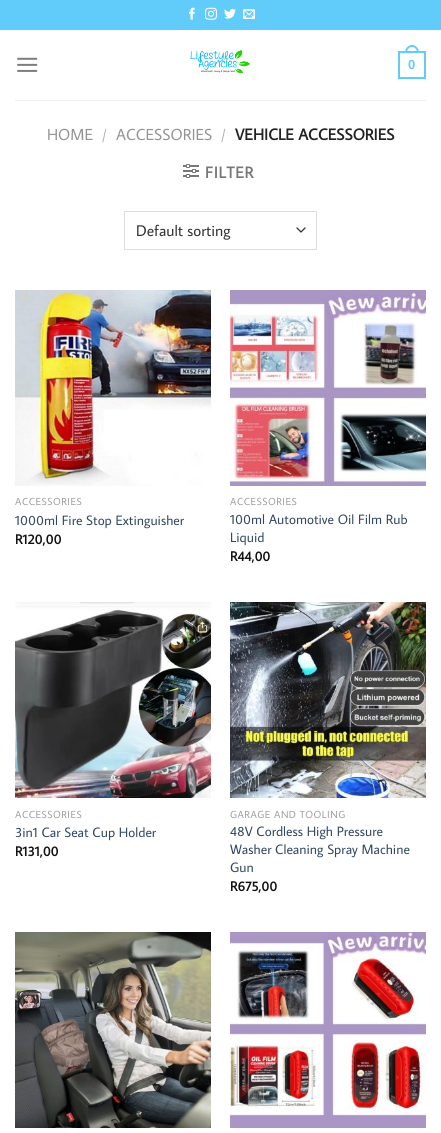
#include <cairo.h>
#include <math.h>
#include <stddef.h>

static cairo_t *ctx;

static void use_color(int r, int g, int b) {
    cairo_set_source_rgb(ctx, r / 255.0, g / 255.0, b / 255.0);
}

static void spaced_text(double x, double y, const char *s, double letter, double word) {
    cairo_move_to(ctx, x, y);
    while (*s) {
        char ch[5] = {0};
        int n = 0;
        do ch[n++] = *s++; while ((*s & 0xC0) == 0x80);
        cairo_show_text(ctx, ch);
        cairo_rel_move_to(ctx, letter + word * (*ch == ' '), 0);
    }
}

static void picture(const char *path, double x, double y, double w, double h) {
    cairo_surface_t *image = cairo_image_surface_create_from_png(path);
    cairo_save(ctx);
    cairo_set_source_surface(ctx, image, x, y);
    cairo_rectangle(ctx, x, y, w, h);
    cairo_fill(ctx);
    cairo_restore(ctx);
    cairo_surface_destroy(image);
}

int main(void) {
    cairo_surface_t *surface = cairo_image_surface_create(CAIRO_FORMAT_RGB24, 441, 1133);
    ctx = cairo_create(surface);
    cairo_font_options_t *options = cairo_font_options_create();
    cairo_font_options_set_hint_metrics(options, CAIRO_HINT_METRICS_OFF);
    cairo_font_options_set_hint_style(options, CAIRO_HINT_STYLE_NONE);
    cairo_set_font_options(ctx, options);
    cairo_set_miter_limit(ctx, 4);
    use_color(255, 255, 255);
    cairo_paint(ctx);
    use_color(97, 203, 249);
    cairo_rectangle(ctx, 0, 0, 441, 30);
    cairo_fill(ctx);
    picture("img1.png", 189, 7, 6, 13);
    picture("img2.png", 205, 7, 12, 13);
    picture("img3.png", 224, 8, 12, 11);
    picture("img4.png", 243, 9, 12, 10);
    picture("img5.png", 17, 57, 21, 15);
    picture("img6.png", 190, 50, 60, 23);
    cairo_rectangle(ctx, 399, 52, 26, 26);
    cairo_stroke(ctx);
    cairo_set_fill_rule(ctx, CAIRO_FILL_RULE_EVEN_ODD);
    cairo_new_path(ctx);
    cairo_move_to(ctx, 412, 45);
    cairo_curve_to(ctx, 416.5, 45, 419, 49, 419, 53);
    cairo_line_to(ctx, 405, 53);
    cairo_curve_to(ctx, 405, 49, 407.5, 45, 412, 45);
    cairo_close_path(ctx);
    cairo_move_to(ctx, 412, 47);
    cairo_curve_to(ctx, 415.5, 47, 417, 50, 417, 53);
    cairo_line_to(ctx, 407, 53);
    cairo_curve_to(ctx, 407, 50, 408.5, 47, 412, 47);
    cairo_close_path(ctx);
    cairo_fill(ctx);
    cairo_select_font_face(ctx, "Liberation Sans", CAIRO_FONT_SLANT_NORMAL, CAIRO_FONT_WEIGHT_BOLD);
    cairo_set_font_size(ctx, 13);
    cairo_move_to(ctx, 408, 69);
    cairo_show_text(ctx, "0");
    use_color(241, 241, 241);
    cairo_rectangle(ctx, 15, 100, 411, 1);
    cairo_fill(ctx);
    cairo_select_font_face(ctx, "Average Sans", CAIRO_FONT_SLANT_NORMAL, CAIRO_FONT_WEIGHT_NORMAL);
    cairo_set_font_size(ctx, 16);
    use_color(148, 148, 148);
    cairo_move_to(ctx, 47, 140);
    cairo_show_text(ctx, "HOME");
    use_color(178, 178, 178);
    cairo_move_to(ctx, 102, 140);
    cairo_show_text(ctx, "/");
    use_color(148, 148, 148);
    cairo_move_to(ctx, 116, 140);
    cairo_show_text(ctx, "ACCESSORIES");
    use_color(178, 178, 178);
    cairo_move_to(ctx, 221, 140);
    cairo_show_text(ctx, "/");
    cairo_select_font_face(ctx, "Average Sans", CAIRO_FONT_SLANT_NORMAL, CAIRO_FONT_WEIGHT_BOLD);
    use_color(34, 34, 34);
    cairo_move_to(ctx, 235, 140);
    cairo_show_text(ctx, "VEHICLE ACCESSORIES");
    picture("img7.png", 183, 164, 16, 14);
    use_color(119, 119, 119);
    spaced_text(205, 178, "FILTER", 0.75, 0);
    cairo_new_path(ctx);
    cairo_move_to(ctx, 297, 228);
    cairo_line_to(ctx, 301, 232);
    cairo_line_to(ctx, 305, 228);
    use_color(51, 51, 51);
    cairo_set_line_width(ctx, 1.3);
    cairo_set_line_cap(ctx, CAIRO_LINE_CAP_ROUND);
    cairo_set_line_join(ctx, CAIRO_LINE_JOIN_ROUND);
    cairo_stroke(ctx);
    cairo_rectangle(ctx, 124.5, 211.5, 192, 38);
    use_color(221, 221, 221);
    cairo_set_line_width(ctx, 1);
    cairo_set_line_cap(ctx, CAIRO_LINE_CAP_BUTT);
    cairo_set_line_join(ctx, CAIRO_LINE_JOIN_MITER);
    cairo_stroke(ctx);
    cairo_select_font_face(ctx, "Average Sans", CAIRO_FONT_SLANT_NORMAL, CAIRO_FONT_WEIGHT_NORMAL);
    cairo_set_font_size(ctx, 15.5);
    use_color(51, 51, 51);
    cairo_move_to(ctx, 136, 236);
    cairo_show_text(ctx, "Default sorting");
    picture("img8.png", 15, 290, 196, 196);
    cairo_set_font_size(ctx, 10.25);
    use_color(160, 160, 160);
    spaced_text(15, 505, "ACCESSORIES", 0.5, 0);
    cairo_set_font_size(ctx, 13.6);
    use_color(51, 72, 98);
    cairo_move_to(ctx, 15, 525);
    cairo_show_text(ctx, "1000ml Fire Stop Extinguisher");
    cairo_select_font_face(ctx, "Average Sans", CAIRO_FONT_SLANT_NORMAL, CAIRO_FONT_WEIGHT_BOLD);
    use_color(17, 17, 17);
    cairo_move_to(ctx, 15, 544);
    cairo_show_text(ctx, "R120,00");
    picture("img9.png", 230, 290, 196, 196);
    cairo_select_font_face(ctx, "Average Sans", CAIRO_FONT_SLANT_NORMAL, CAIRO_FONT_WEIGHT_NORMAL);
    cairo_set_font_size(ctx, 10.25);
    use_color(160, 160, 160);
    spaced_text(230, 505, "ACCESSORIES", 0.5, 0);
    cairo_set_font_size(ctx, 13.6);
    use_color(51, 72, 98);
    cairo_move_to(ctx, 230, 524);
    cairo_show_text(ctx, "100ml Automotive Oil Film Rub");
    cairo_move_to(ctx, 230, 542);
    cairo_show_text(ctx, "Liquid");
    cairo_select_font_face(ctx, "Average Sans", CAIRO_FONT_SLANT_NORMAL, CAIRO_FONT_WEIGHT_BOLD);
    use_color(17, 17, 17);
    cairo_move_to(ctx, 230, 561);
    cairo_show_text(ctx, "R44,00");
    picture("img10.png", 15, 602, 196, 196);
    cairo_select_font_face(ctx, "Average Sans", CAIRO_FONT_SLANT_NORMAL, CAIRO_FONT_WEIGHT_NORMAL);
    cairo_set_font_size(ctx, 10.25);
    use_color(160, 160, 160);
    spaced_text(15, 818, "ACCESSORIES", 0.5, 0);
    cairo_set_font_size(ctx, 13.6);
    use_color(51, 72, 98);
    cairo_move_to(ctx, 15, 837);
    cairo_show_text(ctx, "3in1 Car Seat Cup Holder");
    cairo_select_font_face(ctx, "Average Sans", CAIRO_FONT_SLANT_NORMAL, CAIRO_FONT_WEIGHT_BOLD);
    use_color(17, 17, 17);
    cairo_move_to(ctx, 15, 856);
    cairo_show_text(ctx, "R131,00");
    picture("img11.png", 230, 602, 196, 196);
    cairo_select_font_face(ctx, "Average Sans", CAIRO_FONT_SLANT_NORMAL, CAIRO_FONT_WEIGHT_NORMAL);
    cairo_set_font_size(ctx, 10.25);
    use_color(160, 160, 160);
    spaced_text(230, 818, "GARAGE AND TOOLING", 0.5, 0);
    cairo_set_font_size(ctx, 13.6);
    use_color(51, 72, 98);
    cairo_move_to(ctx, 230, 836);
    cairo_show_text(ctx, "48V Cordless High Pressure");
    cairo_move_to(ctx, 230, 854);
    cairo_show_text(ctx, "Washer Cleaning Spray Machine");
    cairo_move_to(ctx, 230, 872);
    cairo_show_text(ctx, "Gun");
    cairo_select_font_face(ctx, "Average Sans", CAIRO_FONT_SLANT_NORMAL, CAIRO_FONT_WEIGHT_BOLD);
    use_color(17, 17, 17);
    cairo_move_to(ctx, 230, 891);
    cairo_show_text(ctx, "R675,00");
    picture("img12.png", 15, 932, 196, 196);
    picture("img13.png", 230, 932, 196, 196);
    cairo_surface_write_to_png(surface, "result.png");
    cairo_font_options_destroy(options);
    cairo_destroy(ctx);
    cairo_surface_destroy(surface);
    return 0;
}
